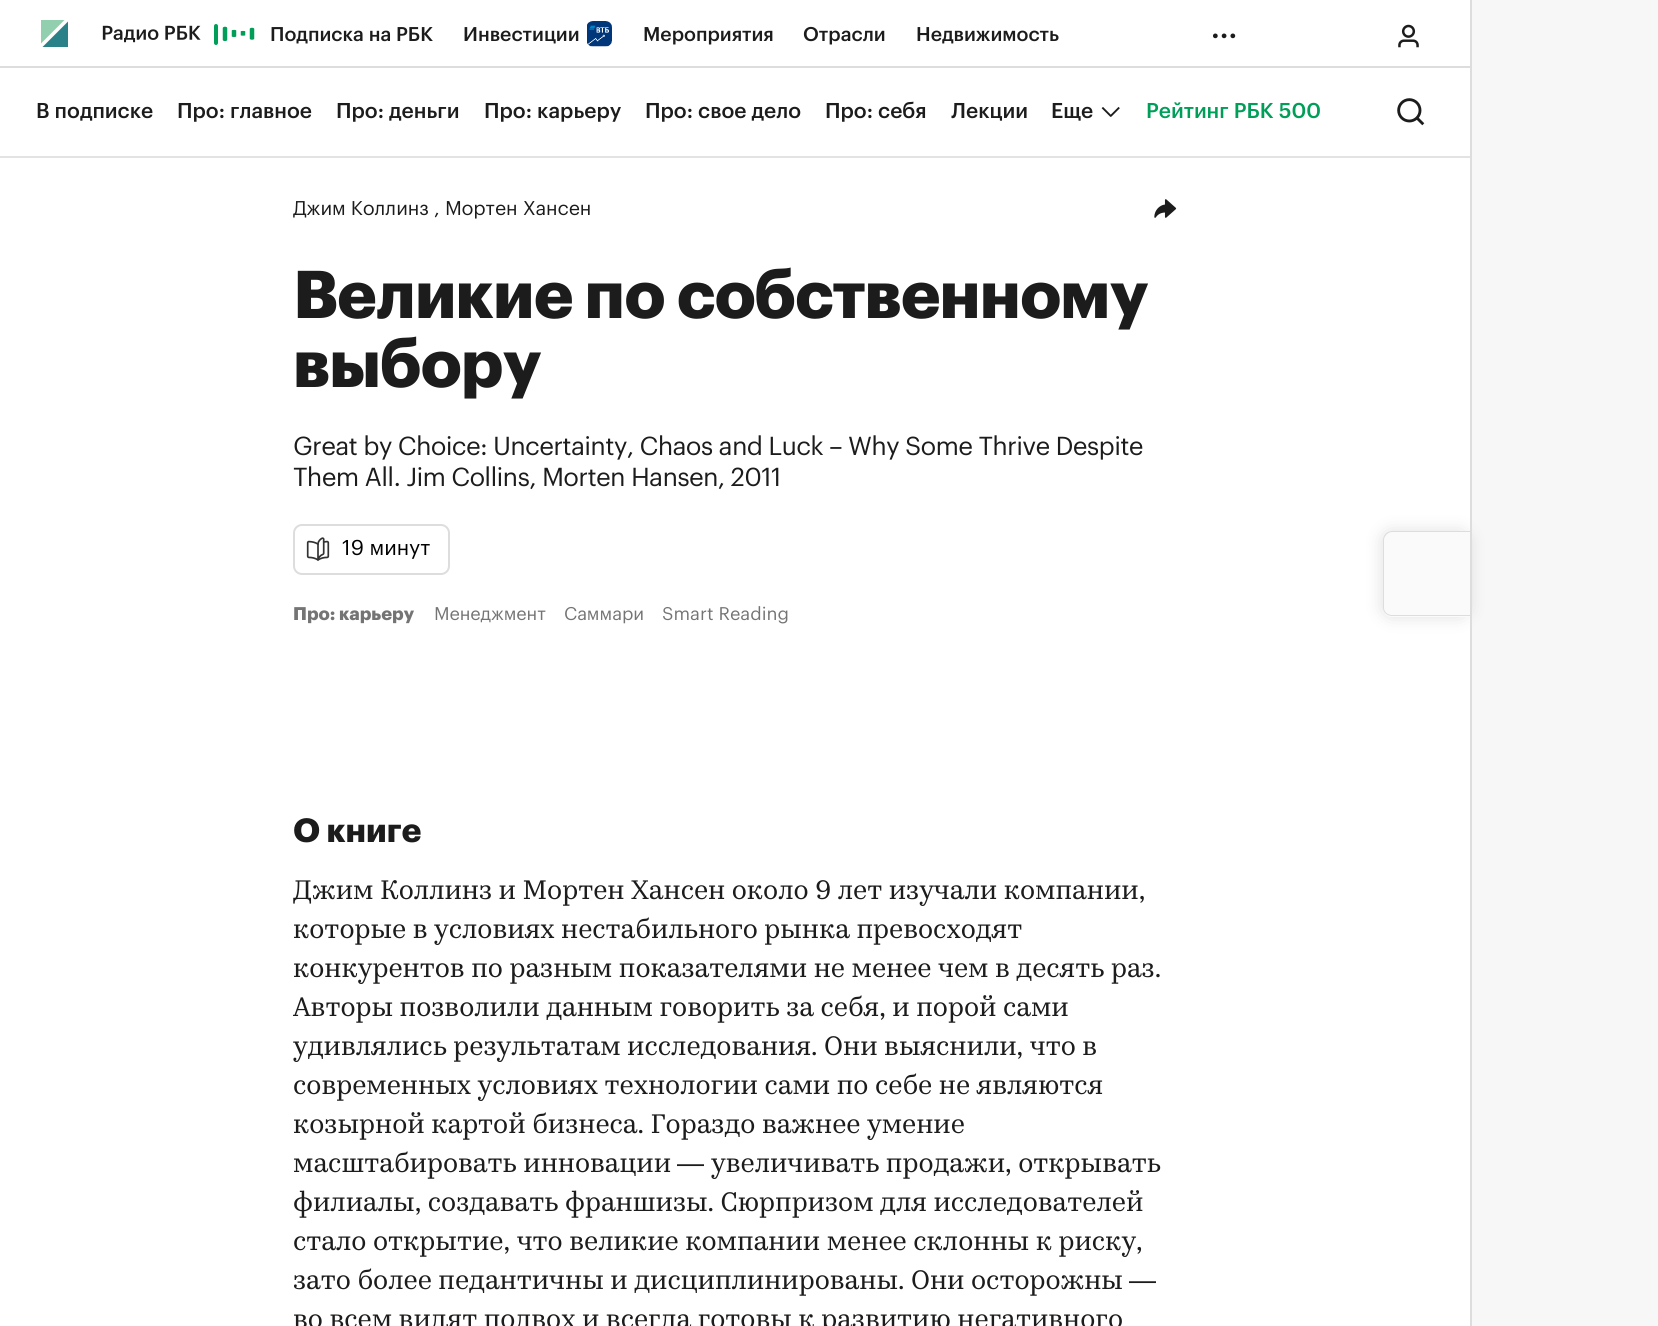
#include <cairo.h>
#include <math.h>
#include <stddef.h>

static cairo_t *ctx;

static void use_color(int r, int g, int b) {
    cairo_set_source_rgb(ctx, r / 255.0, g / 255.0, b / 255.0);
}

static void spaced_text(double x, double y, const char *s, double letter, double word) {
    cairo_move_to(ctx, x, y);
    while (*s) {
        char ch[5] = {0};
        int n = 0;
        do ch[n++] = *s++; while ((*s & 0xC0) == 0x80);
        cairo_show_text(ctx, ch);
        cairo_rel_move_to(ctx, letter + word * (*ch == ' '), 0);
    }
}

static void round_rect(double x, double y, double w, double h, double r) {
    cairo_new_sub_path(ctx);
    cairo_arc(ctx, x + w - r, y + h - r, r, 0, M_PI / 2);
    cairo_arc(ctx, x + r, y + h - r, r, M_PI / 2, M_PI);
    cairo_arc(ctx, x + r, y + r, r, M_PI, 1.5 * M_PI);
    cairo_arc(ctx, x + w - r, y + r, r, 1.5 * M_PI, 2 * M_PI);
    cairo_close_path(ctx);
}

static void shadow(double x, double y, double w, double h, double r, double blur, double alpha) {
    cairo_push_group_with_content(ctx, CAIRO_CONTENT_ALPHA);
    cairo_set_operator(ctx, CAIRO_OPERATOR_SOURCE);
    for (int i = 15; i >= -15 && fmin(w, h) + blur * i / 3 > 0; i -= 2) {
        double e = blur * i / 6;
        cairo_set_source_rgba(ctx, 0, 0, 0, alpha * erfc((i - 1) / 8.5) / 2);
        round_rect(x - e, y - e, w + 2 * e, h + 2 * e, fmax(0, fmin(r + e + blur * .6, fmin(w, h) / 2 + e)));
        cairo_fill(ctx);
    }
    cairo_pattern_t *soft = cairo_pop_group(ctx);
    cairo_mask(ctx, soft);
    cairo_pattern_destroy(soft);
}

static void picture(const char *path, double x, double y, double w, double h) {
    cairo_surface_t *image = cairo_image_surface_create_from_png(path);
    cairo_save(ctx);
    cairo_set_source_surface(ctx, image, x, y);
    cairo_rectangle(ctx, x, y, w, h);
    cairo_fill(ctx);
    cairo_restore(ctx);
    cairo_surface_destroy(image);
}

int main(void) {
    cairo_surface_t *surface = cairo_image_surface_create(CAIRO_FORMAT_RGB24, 1658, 1326);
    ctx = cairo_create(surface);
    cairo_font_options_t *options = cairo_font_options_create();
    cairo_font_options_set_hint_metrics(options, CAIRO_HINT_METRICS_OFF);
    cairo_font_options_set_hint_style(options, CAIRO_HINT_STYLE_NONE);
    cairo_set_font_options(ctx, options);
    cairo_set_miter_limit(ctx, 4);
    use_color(247, 247, 247);
    cairo_paint(ctx);
    use_color(255, 255, 255);
    cairo_rectangle(ctx, 0, 0, 1470, 66);
    cairo_fill(ctx);
    use_color(221, 221, 221);
    cairo_rectangle(ctx, 0, 66, 1470, 2);
    cairo_fill(ctx);
    cairo_save(ctx);
    cairo_rectangle(ctx, 41, 20, 27, 27);
    cairo_clip(ctx);
    use_color(146, 207, 174);
    cairo_set_fill_rule(ctx, CAIRO_FILL_RULE_EVEN_ODD);
    cairo_new_path(ctx);
    cairo_move_to(ctx, 39, 18);
    cairo_line_to(ctx, 39, 45.5);
    cairo_line_to(ctx, 66.5, 18);
    cairo_close_path(ctx);
    cairo_fill(ctx);
    use_color(42, 130, 136);
    cairo_new_path(ctx);
    cairo_move_to(ctx, 41.5, 48);
    cairo_line_to(ctx, 69, 48);
    cairo_line_to(ctx, 69, 20.5);
    cairo_close_path(ctx);
    cairo_fill(ctx);
    cairo_restore(ctx);
    picture("img1.png", 102, 24, 153, 21);
    cairo_select_font_face(ctx, "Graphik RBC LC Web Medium", CAIRO_FONT_SLANT_NORMAL, CAIRO_FONT_WEIGHT_NORMAL);
    cairo_set_font_size(ctx, 19.5);
    use_color(28, 28, 28);
    cairo_move_to(ctx, 270, 41);
    cairo_show_text(ctx, "Подписка на РБК");
    cairo_move_to(ctx, 463, 41);
    cairo_show_text(ctx, "Инвестиции");
    picture("img2.png", 587, 21, 25, 26);
    cairo_move_to(ctx, 643, 41);
    cairo_show_text(ctx, "Мероприятия");
    cairo_move_to(ctx, 803, 41);
    cairo_show_text(ctx, "Отрасли");
    cairo_move_to(ctx, 916, 41);
    cairo_show_text(ctx, "Недвижимость");
    cairo_set_font_size(ctx, 30);
    cairo_move_to(ctx, 1211, 38);
    cairo_show_text(ctx, "...");
    picture("img3.png", 1398, 24, 21, 24);
    use_color(255, 255, 255);
    cairo_rectangle(ctx, 0, 68, 1470, 1258);
    cairo_fill(ctx);
    use_color(227, 227, 227);
    cairo_rectangle(ctx, 0, 156, 1470, 2);
    cairo_fill(ctx);
    cairo_set_font_size(ctx, 21);
    use_color(28, 28, 28);
    cairo_move_to(ctx, 36, 118);
    cairo_show_text(ctx, "В подписке");
    cairo_move_to(ctx, 177, 118);
    cairo_show_text(ctx, "Про: главное");
    cairo_move_to(ctx, 336, 118);
    cairo_show_text(ctx, "Про: деньги");
    cairo_move_to(ctx, 484, 118);
    cairo_show_text(ctx, "Про: карьеру");
    cairo_move_to(ctx, 645, 118);
    cairo_show_text(ctx, "Про: свое дело");
    cairo_move_to(ctx, 825, 118);
    cairo_show_text(ctx, "Про: себя");
    cairo_move_to(ctx, 951, 118);
    cairo_show_text(ctx, "Лекции");
    cairo_move_to(ctx, 1051, 118);
    cairo_show_text(ctx, "Еще");
    picture("img4.png", 1101, 107, 19, 10);
    use_color(0, 158, 89);
    cairo_move_to(ctx, 1146, 118);
    cairo_show_text(ctx, "Рейтинг РБК 500");
    picture("img5.png", 1397, 98, 28, 28);
    use_color(0, 0, 0);
    shadow(1382, 531, 87, 86, 9, 9, 0.12);
    use_color(221, 221, 221);
    cairo_rectangle(ctx, 1470, 0, 2, 1326);
    cairo_fill(ctx);
    cairo_select_font_face(ctx, "Graphik RBC LC Web", CAIRO_FONT_SLANT_NORMAL, CAIRO_FONT_WEIGHT_NORMAL);
    cairo_set_font_size(ctx, 19.5);
    use_color(28, 28, 28);
    cairo_move_to(ctx, 293, 215);
    cairo_show_text(ctx, "Джим Коллинз , Мортен Хансен");
    picture("img6.png", 1154, 199, 23, 19);
    cairo_select_font_face(ctx, "Graphik RBC LC Web", CAIRO_FONT_SLANT_NORMAL, CAIRO_FONT_WEIGHT_BOLD);
    cairo_set_font_size(ctx, 66);
    spaced_text(293, 318, "Великие по собственному", -0.75, 0);
    spaced_text(293, 387, "выбору", -0.75, 0);
    cairo_select_font_face(ctx, "Graphik RBC LC Web", CAIRO_FONT_SLANT_NORMAL, CAIRO_FONT_WEIGHT_NORMAL);
    cairo_set_font_size(ctx, 25.5);
    spaced_text(293, 455, "Great by Choice: Uncertainty, Chaos and Luck – Why Some Thrive Despite", -0.75, 0);
    spaced_text(293, 486, "Them All. Jim Collins, Morten Hansen, 2011", -0.75, 0);
    picture("img7.png", 306, 537, 24, 24);
    round_rect(294, 525, 155, 49, 8);
    use_color(221, 221, 221);
    cairo_stroke(ctx);
    cairo_set_font_size(ctx, 21);
    use_color(0, 0, 0);
    cairo_move_to(ctx, 342, 555);
    cairo_show_text(ctx, "19 минут");
    use_color(250, 250, 250);
    cairo_new_path(ctx);
    cairo_move_to(ctx, 1392, 531);
    cairo_line_to(ctx, 1470, 531);
    cairo_line_to(ctx, 1470, 617);
    cairo_line_to(ctx, 1392, 617);
    cairo_curve_to(ctx, 1387, 617, 1383, 613, 1383, 608);
    cairo_line_to(ctx, 1383, 540);
    cairo_curve_to(ctx, 1383, 535, 1387, 531, 1392, 531);
    cairo_close_path(ctx);
    cairo_fill(ctx);
    use_color(221, 221, 221);
    cairo_set_fill_rule(ctx, CAIRO_FILL_RULE_EVEN_ODD);
    cairo_new_path(ctx);
    cairo_move_to(ctx, 1392, 531);
    cairo_line_to(ctx, 1470, 531);
    cairo_line_to(ctx, 1470, 616);
    cairo_line_to(ctx, 1392, 616);
    cairo_curve_to(ctx, 1387, 616, 1383, 612, 1383, 608);
    cairo_line_to(ctx, 1383, 540);
    cairo_curve_to(ctx, 1383, 535, 1387, 531, 1392, 531);
    cairo_close_path(ctx);
    cairo_move_to(ctx, 1392, 532);
    cairo_line_to(ctx, 1470, 532);
    cairo_line_to(ctx, 1470, 615);
    cairo_line_to(ctx, 1392, 615);
    cairo_curve_to(ctx, 1388, 615, 1384, 612, 1384, 608);
    cairo_line_to(ctx, 1384, 540);
    cairo_curve_to(ctx, 1384, 536, 1388, 532, 1392, 532);
    cairo_close_path(ctx);
    cairo_fill(ctx);
    cairo_select_font_face(ctx, "Graphik RBC LC Web", CAIRO_FONT_SLANT_NORMAL, CAIRO_FONT_WEIGHT_BOLD);
    cairo_set_font_size(ctx, 18);
    use_color(116, 116, 116);
    cairo_move_to(ctx, 293, 620);
    cairo_show_text(ctx, "Про: карьеру");
    cairo_select_font_face(ctx, "Graphik RBC LC Web", CAIRO_FONT_SLANT_NORMAL, CAIRO_FONT_WEIGHT_NORMAL);
    cairo_move_to(ctx, 434, 620);
    cairo_show_text(ctx, "Менеджмент");
    cairo_move_to(ctx, 564, 620);
    cairo_show_text(ctx, "Саммари");
    cairo_move_to(ctx, 662, 620);
    cairo_show_text(ctx, "Smart Reading");
    cairo_select_font_face(ctx, "Graphik RBC LC Web", CAIRO_FONT_SLANT_NORMAL, CAIRO_FONT_WEIGHT_BOLD);
    cairo_set_font_size(ctx, 33);
    use_color(28, 28, 28);
    cairo_move_to(ctx, 293, 842);
    cairo_show_text(ctx, "О книге");
    cairo_select_font_face(ctx, "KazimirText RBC", CAIRO_FONT_SLANT_NORMAL, CAIRO_FONT_WEIGHT_NORMAL);
    cairo_set_font_size(ctx, 27);
    cairo_move_to(ctx, 293, 899);
    cairo_show_text(ctx, "Джим Коллинз и Мортен Хансен около 9 лет изучали компании,");
    cairo_move_to(ctx, 293, 938);
    cairo_show_text(ctx, "которые в условиях нестабильного рынка превосходят");
    cairo_move_to(ctx, 293, 977);
    cairo_show_text(ctx, "конкурентов по разным показателями не менее чем в десять раз.");
    cairo_move_to(ctx, 293, 1016);
    cairo_show_text(ctx, "Авторы позволили данным говорить за себя, и порой сами");
    cairo_move_to(ctx, 293, 1055);
    cairo_show_text(ctx, "удивлялись результатам исследования. Они выяснили, что в");
    cairo_move_to(ctx, 293, 1094);
    cairo_show_text(ctx, "современных условиях технологии сами по себе не являются");
    cairo_move_to(ctx, 293, 1133);
    cairo_show_text(ctx, "козырной картой бизнеса. Гораздо важнее умение");
    cairo_move_to(ctx, 293, 1172);
    cairo_show_text(ctx, "масштабировать инновации");
    cairo_select_font_face(ctx, "Liberation Sans", CAIRO_FONT_SLANT_NORMAL, CAIRO_FONT_WEIGHT_NORMAL);
    cairo_move_to(ctx, 677, 1172);
    cairo_show_text(ctx, "—");
    cairo_select_font_face(ctx, "KazimirText RBC", CAIRO_FONT_SLANT_NORMAL, CAIRO_FONT_WEIGHT_NORMAL);
    cairo_move_to(ctx, 711, 1172);
    cairo_show_text(ctx, "увеличивать продажи, открывать");
    cairo_move_to(ctx, 293, 1211);
    cairo_show_text(ctx, "филиалы, создавать франшизы. Сюрпризом для исследователей");
    cairo_move_to(ctx, 293, 1250);
    cairo_show_text(ctx, "стало открытие, что великие компании менее склонны к риску,");
    cairo_move_to(ctx, 293, 1289);
    cairo_show_text(ctx, "зато более педантичны и дисциплинированы. Они осторожны");
    cairo_select_font_face(ctx, "Liberation Sans", CAIRO_FONT_SLANT_NORMAL, CAIRO_FONT_WEIGHT_NORMAL);
    cairo_move_to(ctx, 1129, 1289);
    cairo_show_text(ctx, "—");
    cairo_select_font_face(ctx, "KazimirText RBC", CAIRO_FONT_SLANT_NORMAL, CAIRO_FONT_WEIGHT_NORMAL);
    cairo_move_to(ctx, 293, 1328);
    cairo_show_text(ctx, "во всем видят подвох и всегда готовы к развитию негативного");
    cairo_surface_write_to_png(surface, "result.png");
    cairo_font_options_destroy(options);
    cairo_destroy(ctx);
    cairo_surface_destroy(surface);
    return 0;
}
